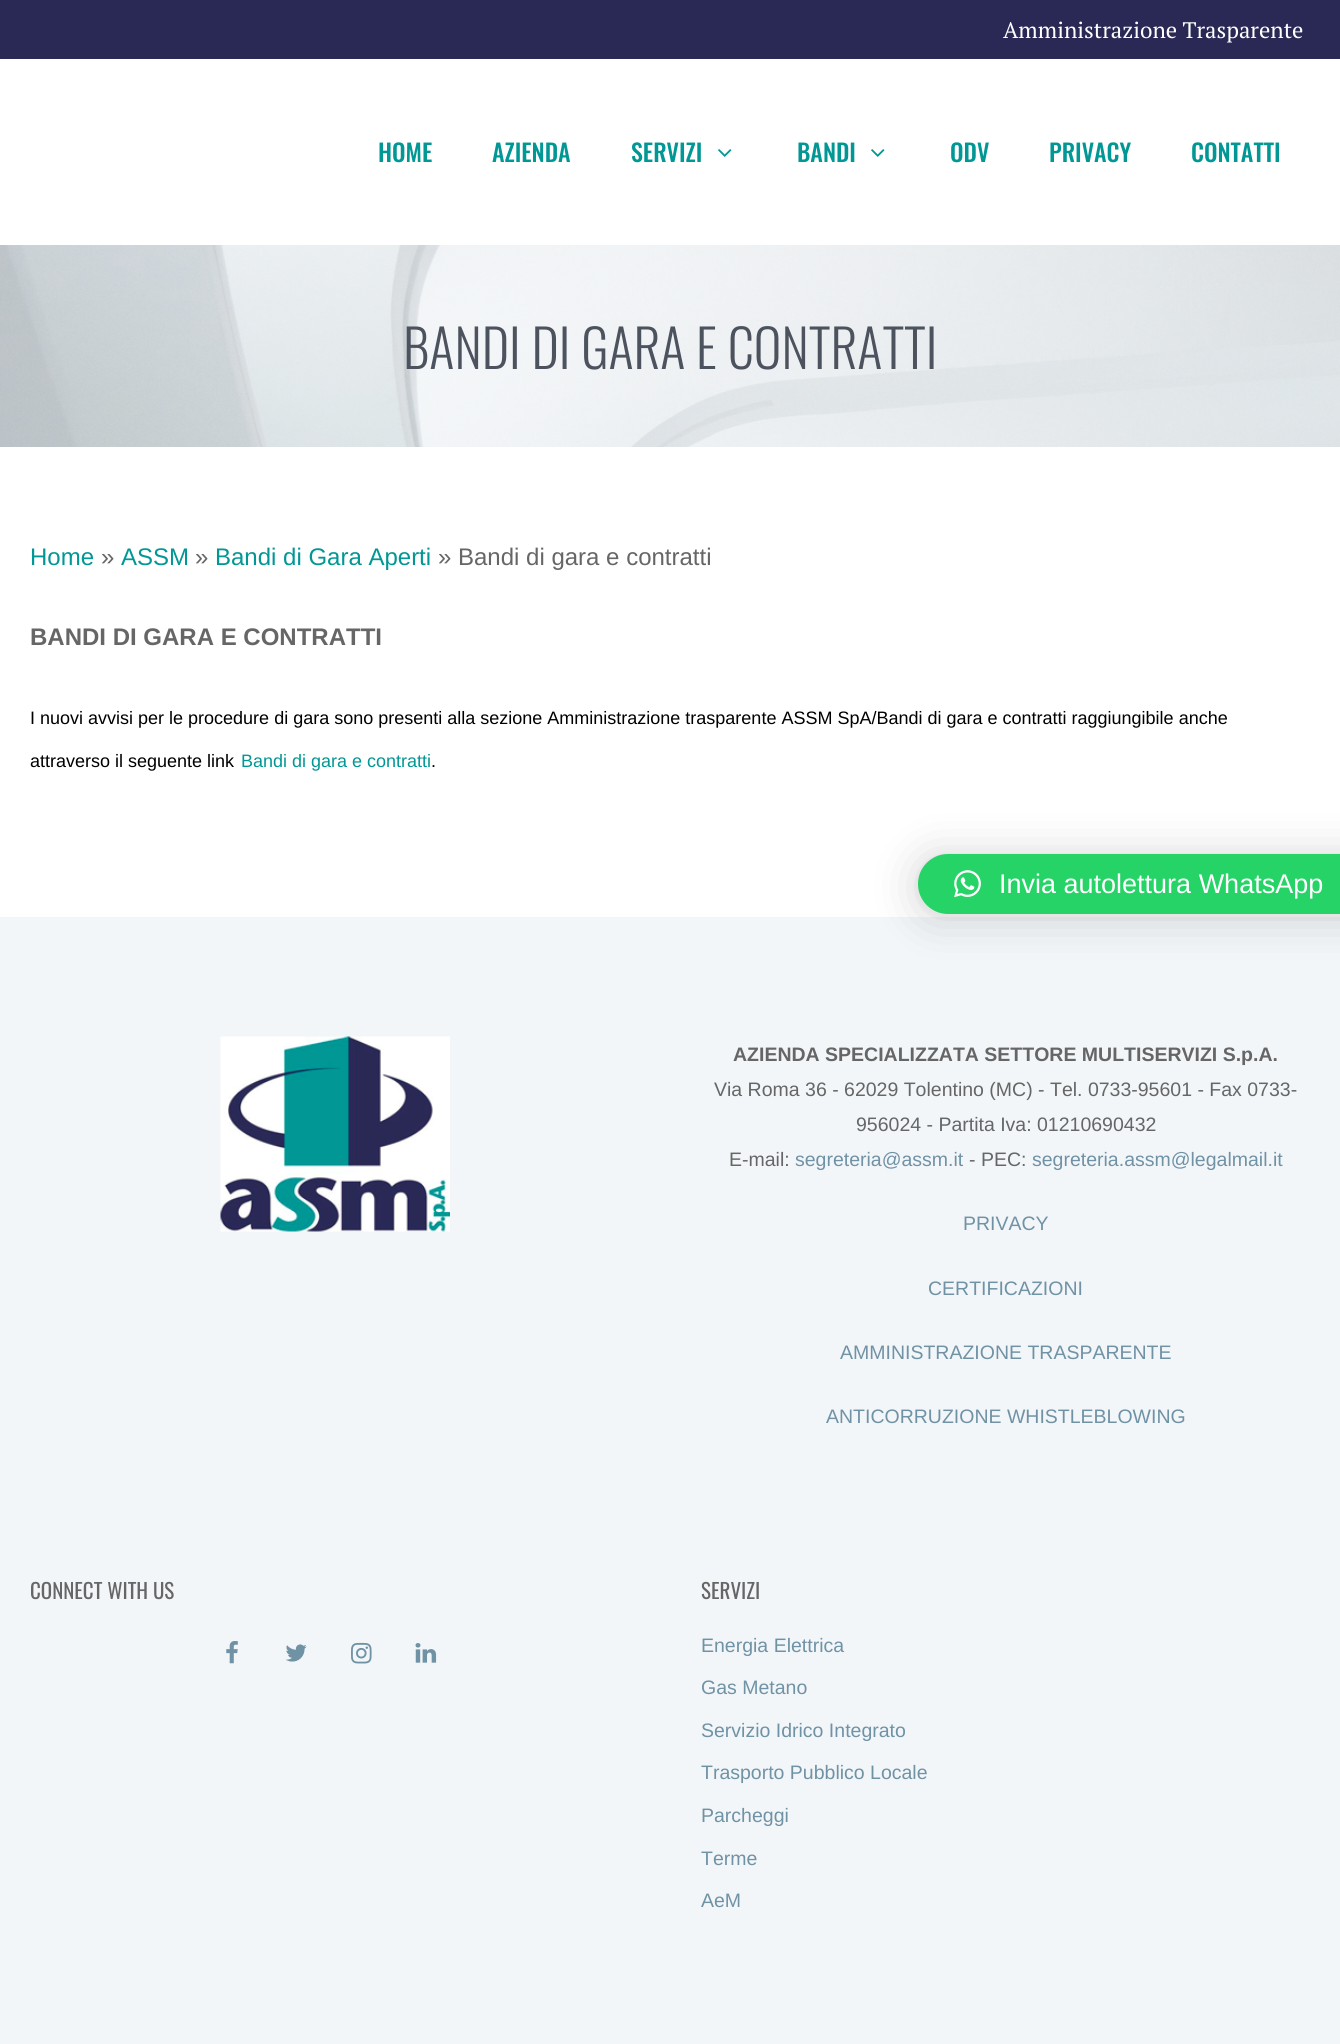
#include <cairo.h>
#include <math.h>
#include <stddef.h>

static cairo_t *ctx;

static void use_color(int r, int g, int b) {
    cairo_set_source_rgb(ctx, r / 255.0, g / 255.0, b / 255.0);
}

static void round_rect(double x, double y, double w, double h, double r) {
    cairo_new_sub_path(ctx);
    cairo_arc(ctx, x + w - r, y + h - r, r, 0, M_PI / 2);
    cairo_arc(ctx, x + r, y + h - r, r, M_PI / 2, M_PI);
    cairo_arc(ctx, x + r, y + r, r, M_PI, 1.5 * M_PI);
    cairo_arc(ctx, x + w - r, y + r, r, 1.5 * M_PI, 2 * M_PI);
    cairo_close_path(ctx);
}

static void shadow(double x, double y, double w, double h, double r, double blur, double alpha) {
    cairo_push_group_with_content(ctx, CAIRO_CONTENT_ALPHA);
    cairo_set_operator(ctx, CAIRO_OPERATOR_SOURCE);
    for (int i = 15; i >= -15 && fmin(w, h) + blur * i / 3 > 0; i -= 2) {
        double e = blur * i / 6;
        cairo_set_source_rgba(ctx, 0, 0, 0, alpha * erfc((i - 1) / 8.5) / 2);
        round_rect(x - e, y - e, w + 2 * e, h + 2 * e, fmax(0, fmin(r + e + blur * .6, fmin(w, h) / 2 + e)));
        cairo_fill(ctx);
    }
    cairo_pattern_t *soft = cairo_pop_group(ctx);
    cairo_mask(ctx, soft);
    cairo_pattern_destroy(soft);
}

static void picture(const char *path, double x, double y, double w, double h) {
    cairo_surface_t *image = cairo_image_surface_create_from_png(path);
    cairo_save(ctx);
    cairo_set_source_surface(ctx, image, x, y);
    cairo_rectangle(ctx, x, y, w, h);
    cairo_fill(ctx);
    cairo_restore(ctx);
    cairo_surface_destroy(image);
}

int main(void) {
    cairo_surface_t *surface = cairo_image_surface_create(CAIRO_FORMAT_RGB24, 1340, 2044);
    ctx = cairo_create(surface);
    cairo_font_options_t *options = cairo_font_options_create();
    cairo_font_options_set_hint_metrics(options, CAIRO_HINT_METRICS_OFF);
    cairo_font_options_set_hint_style(options, CAIRO_HINT_STYLE_NONE);
    cairo_set_font_options(ctx, options);
    cairo_set_miter_limit(ctx, 4);
    use_color(255, 255, 255);
    cairo_paint(ctx);
    use_color(42, 41, 86);
    cairo_rectangle(ctx, 0, 0, 1340, 59);
    cairo_fill(ctx);
    cairo_select_font_face(ctx, "PT Serif", CAIRO_FONT_SLANT_NORMAL, CAIRO_FONT_WEIGHT_NORMAL);
    cairo_set_font_size(ctx, 22.5);
    use_color(255, 255, 255);
    cairo_move_to(ctx, 1003, 38);
    cairo_show_text(ctx, "Amministrazione Trasparente");
    cairo_select_font_face(ctx, "Oswald Medium", CAIRO_FONT_SLANT_NORMAL, CAIRO_FONT_WEIGHT_NORMAL);
    cairo_set_font_size(ctx, 24);
    use_color(0, 151, 149);
    cairo_move_to(ctx, 378, 162);
    cairo_show_text(ctx, "HOME");
    cairo_move_to(ctx, 492, 162);
    cairo_show_text(ctx, "AZIENDA");
    cairo_move_to(ctx, 631, 162);
    cairo_show_text(ctx, "SERVIZI");
    picture("img1.png", 718, 149, 14, 8);
    cairo_move_to(ctx, 797, 162);
    cairo_show_text(ctx, "BANDI");
    picture("img1.png", 871, 149, 14, 8);
    cairo_move_to(ctx, 950, 162);
    cairo_show_text(ctx, "ODV");
    cairo_move_to(ctx, 1049, 162);
    cairo_show_text(ctx, "PRIVACY");
    cairo_move_to(ctx, 1191, 162);
    cairo_show_text(ctx, "CONTATTI");
    picture("img2.png", 0, 245, 1340, 202);
    cairo_select_font_face(ctx, "Oswald Light", CAIRO_FONT_SLANT_NORMAL, CAIRO_FONT_WEIGHT_NORMAL);
    cairo_set_font_size(ctx, 52.5);
    use_color(77, 83, 94);
    cairo_move_to(ctx, 403, 369);
    cairo_show_text(ctx, "BANDI DI GARA E CONTRATTI");
    cairo_select_font_face(ctx, "Liberation Sans", CAIRO_FONT_SLANT_NORMAL, CAIRO_FONT_WEIGHT_NORMAL);
    cairo_set_font_size(ctx, 24);
    use_color(0, 151, 149);
    cairo_move_to(ctx, 30, 565);
    cairo_show_text(ctx, "Home");
    use_color(102, 102, 102);
    cairo_move_to(ctx, 101, 565);
    cairo_show_text(ctx, "»");
    use_color(0, 151, 149);
    cairo_move_to(ctx, 121, 565);
    cairo_show_text(ctx, "ASSM");
    use_color(102, 102, 102);
    cairo_move_to(ctx, 195, 565);
    cairo_show_text(ctx, "»");
    use_color(0, 151, 149);
    cairo_move_to(ctx, 215, 565);
    cairo_show_text(ctx, "Bandi di Gara Aperti");
    use_color(102, 102, 102);
    cairo_move_to(ctx, 438, 565);
    cairo_show_text(ctx, "» Bandi di gara e contratti");
    cairo_select_font_face(ctx, "Liberation Sans", CAIRO_FONT_SLANT_NORMAL, CAIRO_FONT_WEIGHT_BOLD);
    cairo_move_to(ctx, 30, 645);
    cairo_show_text(ctx, "BANDI DI GARA E CONTRATTI");
    cairo_select_font_face(ctx, "Liberation Sans", CAIRO_FONT_SLANT_NORMAL, CAIRO_FONT_WEIGHT_NORMAL);
    cairo_set_font_size(ctx, 18);
    use_color(0, 0, 0);
    cairo_move_to(ctx, 30, 724);
    cairo_show_text(ctx, "I nuovi avvisi per le procedure di gara sono presenti alla sezione Amministrazione trasparente ASSM SpA/Bandi di gara e contratti raggiungibile anche");
    cairo_move_to(ctx, 30, 767);
    cairo_show_text(ctx, "attraverso il seguente link");
    use_color(0, 151, 149);
    cairo_move_to(ctx, 241, 767);
    cairo_show_text(ctx, "Bandi di gara e contratti");
    use_color(0, 0, 0);
    cairo_move_to(ctx, 431, 767);
    cairo_show_text(ctx, ".");
    use_color(242, 246, 249);
    cairo_rectangle(ctx, 0, 917, 1340, 1127);
    cairo_fill(ctx);
    use_color(0, 0, 0);
    shadow(918, 857, 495, 60, 30, 24, 0.16);
    shadow(918, 855, 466, 60, 30, 4.5, 0.06);
    use_color(37, 211, 102);
    round_rect(918, 854, 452, 60, 30);
    cairo_fill(ctx);
    picture("img3.png", 954, 870, 27, 28);
    cairo_set_font_size(ctx, 27);
    use_color(255, 255, 255);
    cairo_move_to(ctx, 999, 893);
    cairo_show_text(ctx, "Invia autolettura WhatsApp");
    picture("img4.png", 220, 1036, 230, 196);
    cairo_select_font_face(ctx, "Liberation Sans", CAIRO_FONT_SLANT_NORMAL, CAIRO_FONT_WEIGHT_BOLD);
    cairo_set_font_size(ctx, 19.5);
    use_color(102, 102, 102);
    cairo_move_to(ctx, 733, 1061);
    cairo_show_text(ctx, "AZIENDA SPECIALIZZATA SETTORE MULTISERVIZI S.p.A.");
    cairo_select_font_face(ctx, "Liberation Sans", CAIRO_FONT_SLANT_NORMAL, CAIRO_FONT_WEIGHT_NORMAL);
    cairo_move_to(ctx, 714, 1096);
    cairo_show_text(ctx, "Via Roma 36 - 62029 Tolentino (MC) - Tel. 0733-95601 - Fax 0733-");
    cairo_move_to(ctx, 856, 1131);
    cairo_show_text(ctx, "956024 - Partita Iva: 01210690432");
    cairo_move_to(ctx, 729, 1166);
    cairo_show_text(ctx, "E-mail:");
    use_color(112, 146, 165);
    cairo_move_to(ctx, 795, 1166);
    cairo_show_text(ctx, "segreteria@assm.it");
    use_color(102, 102, 102);
    cairo_move_to(ctx, 969, 1166);
    cairo_show_text(ctx, "- PEC:");
    use_color(112, 146, 165);
    cairo_move_to(ctx, 1032, 1166);
    cairo_show_text(ctx, "segreteria.assm@legalmail.it");
    cairo_move_to(ctx, 963, 1230);
    cairo_show_text(ctx, "PRIVACY");
    cairo_move_to(ctx, 928, 1295);
    cairo_show_text(ctx, "CERTIFICAZIONI");
    cairo_move_to(ctx, 840, 1359);
    cairo_show_text(ctx, "AMMINISTRAZIONE TRASPARENTE");
    cairo_move_to(ctx, 826, 1423);
    cairo_show_text(ctx, "ANTICORRUZIONE WHISTLEBLOWING");
    cairo_select_font_face(ctx, "Oswald", CAIRO_FONT_SLANT_NORMAL, CAIRO_FONT_WEIGHT_NORMAL);
    cairo_set_font_size(ctx, 21);
    use_color(102, 102, 102);
    cairo_move_to(ctx, 30, 1599);
    cairo_show_text(ctx, "CONNECT WITH US");
    picture("img5.png", 226, 1641, 12, 23);
    picture("img6.png", 285, 1644, 22, 18);
    picture("img7.png", 351, 1642, 21, 22);
    picture("img8.png", 415, 1643, 22, 20);
    cairo_move_to(ctx, 701, 1599);
    cairo_show_text(ctx, "SERVIZI");
    cairo_select_font_face(ctx, "Liberation Sans", CAIRO_FONT_SLANT_NORMAL, CAIRO_FONT_WEIGHT_NORMAL);
    cairo_set_font_size(ctx, 19.5);
    use_color(112, 146, 165);
    cairo_move_to(ctx, 701, 1652);
    cairo_show_text(ctx, "Energia Elettrica");
    cairo_move_to(ctx, 701, 1694);
    cairo_show_text(ctx, "Gas Metano");
    cairo_move_to(ctx, 701, 1737);
    cairo_show_text(ctx, "Servizio Idrico Integrato");
    cairo_move_to(ctx, 701, 1779);
    cairo_show_text(ctx, "Trasporto Pubblico Locale");
    cairo_move_to(ctx, 701, 1822);
    cairo_show_text(ctx, "Parcheggi");
    cairo_move_to(ctx, 701, 1865);
    cairo_show_text(ctx, "Terme");
    cairo_move_to(ctx, 701, 1907);
    cairo_show_text(ctx, "AeM");
    cairo_surface_write_to_png(surface, "result.png");
    cairo_font_options_destroy(options);
    cairo_destroy(ctx);
    cairo_surface_destroy(surface);
    return 0;
}
